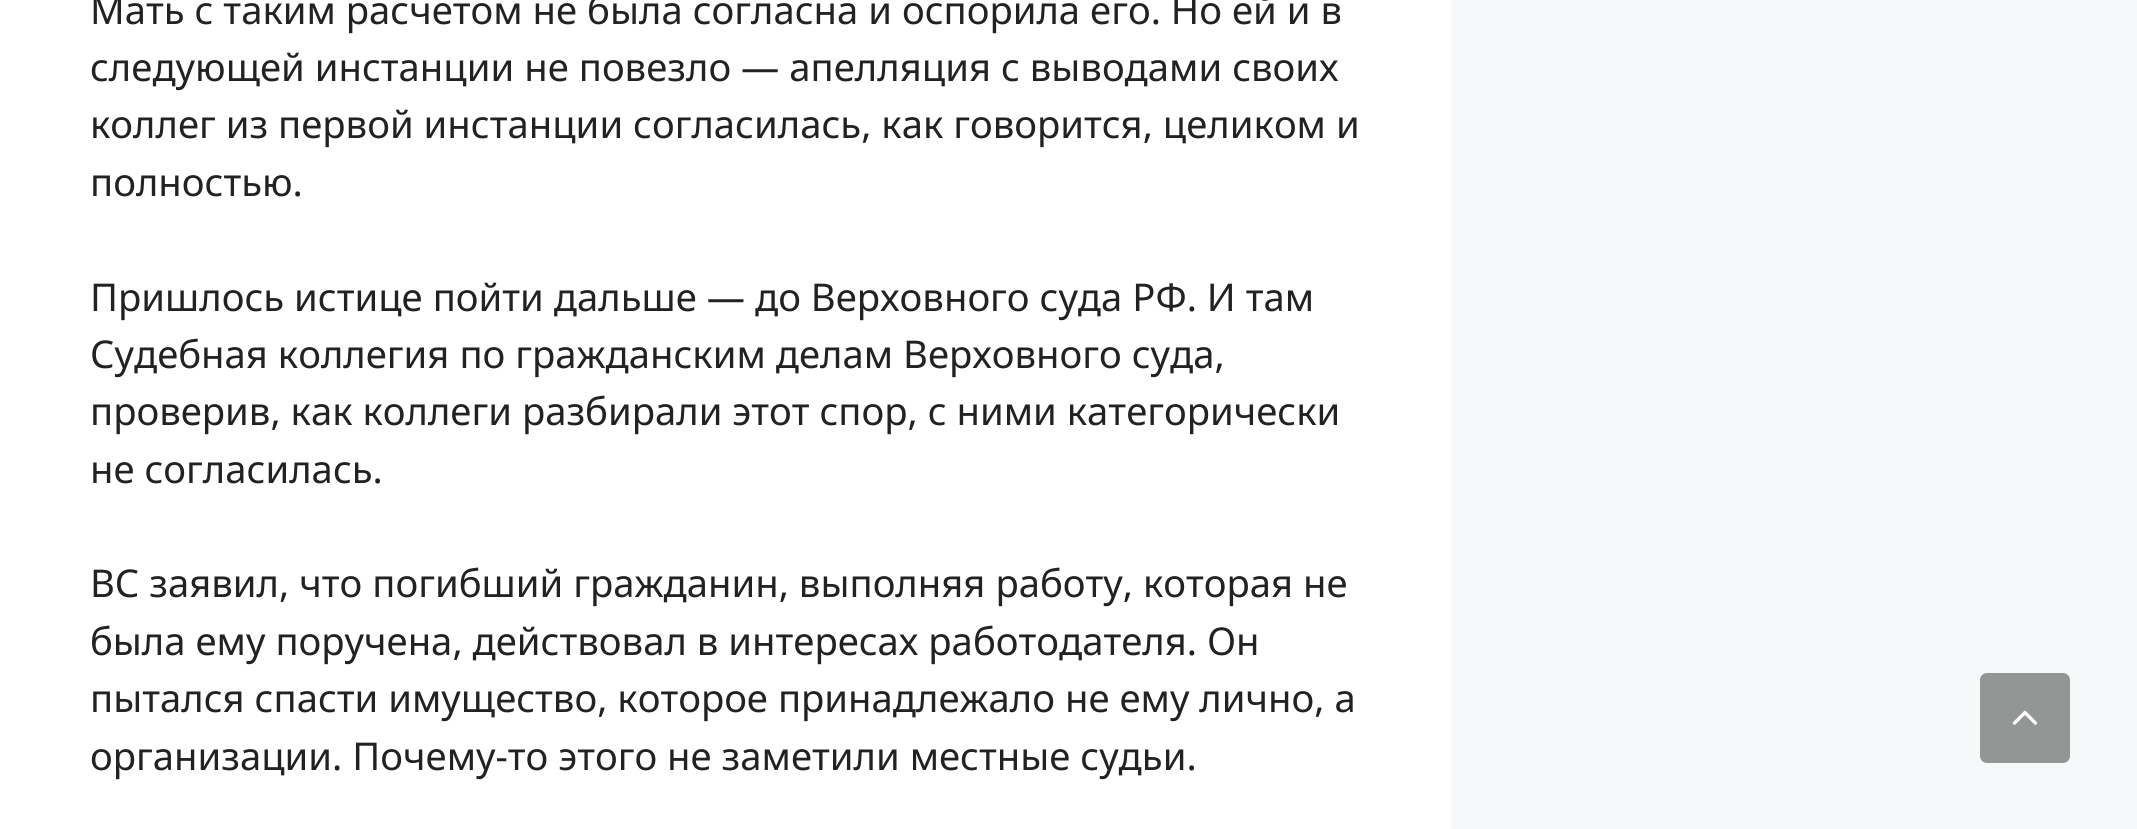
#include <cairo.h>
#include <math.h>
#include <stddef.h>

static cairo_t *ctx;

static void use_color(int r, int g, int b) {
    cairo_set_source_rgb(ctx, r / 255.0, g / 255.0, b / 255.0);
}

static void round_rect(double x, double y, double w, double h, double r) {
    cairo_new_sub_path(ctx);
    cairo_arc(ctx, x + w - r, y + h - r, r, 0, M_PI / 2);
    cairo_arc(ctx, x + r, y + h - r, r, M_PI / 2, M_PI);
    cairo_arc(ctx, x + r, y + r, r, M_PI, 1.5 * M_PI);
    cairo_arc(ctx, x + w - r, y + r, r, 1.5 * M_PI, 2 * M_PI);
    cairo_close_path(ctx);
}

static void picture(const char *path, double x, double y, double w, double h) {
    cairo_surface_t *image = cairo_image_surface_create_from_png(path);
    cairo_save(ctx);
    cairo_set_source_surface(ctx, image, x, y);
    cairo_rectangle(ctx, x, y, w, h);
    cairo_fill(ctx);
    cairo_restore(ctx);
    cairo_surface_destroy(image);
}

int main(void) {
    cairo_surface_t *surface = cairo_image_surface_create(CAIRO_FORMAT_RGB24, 2137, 829);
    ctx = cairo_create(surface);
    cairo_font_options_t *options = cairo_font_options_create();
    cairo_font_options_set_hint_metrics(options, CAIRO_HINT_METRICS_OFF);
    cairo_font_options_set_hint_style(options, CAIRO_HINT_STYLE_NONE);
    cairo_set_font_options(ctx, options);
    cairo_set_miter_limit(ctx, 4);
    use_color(247, 248, 249);
    cairo_paint(ctx);
    use_color(255, 255, 255);
    cairo_rectangle(ctx, 0, 0, 1451, 829);
    cairo_fill(ctx);
    cairo_select_font_face(ctx, "Noto Sans", CAIRO_FONT_SLANT_NORMAL, CAIRO_FONT_WEIGHT_NORMAL);
    cairo_set_font_size(ctx, 38.25);
    use_color(34, 34, 34);
    cairo_move_to(ctx, 90, 24);
    cairo_show_text(ctx, "Мать с таким расчетом не была согласна и оспорила его. Но ей и в");
    cairo_move_to(ctx, 90, 81);
    cairo_show_text(ctx, "следующей инстанции не повезло — апелляция с выводами своих");
    cairo_move_to(ctx, 90, 138);
    cairo_show_text(ctx, "коллег из первой инстанции согласилась, как говорится, целиком и");
    cairo_move_to(ctx, 90, 196);
    cairo_show_text(ctx, "полностью.");
    cairo_move_to(ctx, 90, 311);
    cairo_show_text(ctx, "Пришлось истице пойти дальше — до Верховного суда РФ. И там");
    cairo_move_to(ctx, 90, 368);
    cairo_show_text(ctx, "Судебная коллегия по гражданским делам Верховного суда,");
    cairo_move_to(ctx, 90, 425);
    cairo_show_text(ctx, "проверив, как коллеги разбирали этот спор, с ними категорически");
    cairo_move_to(ctx, 90, 483);
    cairo_show_text(ctx, "не согласилась.");
    cairo_move_to(ctx, 90, 597);
    cairo_show_text(ctx, "ВС заявил, что погибший гражданин, выполняя работу, которая не");
    cairo_move_to(ctx, 90, 655);
    cairo_show_text(ctx, "была ему поручена, действовал в интересах работодателя. Он");
    cairo_move_to(ctx, 90, 712);
    cairo_show_text(ctx, "пытался спасти имущество, которое принадлежало не ему лично, а");
    cairo_move_to(ctx, 90, 770);
    cairo_show_text(ctx, "организации. Почему-то этого не заметили местные судьи.");
    use_color(148, 149, 149);
    round_rect(1980, 673, 90, 90, 7);
    cairo_fill(ctx);
    picture("img1.png", 2012, 710, 26, 15);
    cairo_surface_write_to_png(surface, "result.png");
    cairo_font_options_destroy(options);
    cairo_destroy(ctx);
    cairo_surface_destroy(surface);
    return 0;
}
